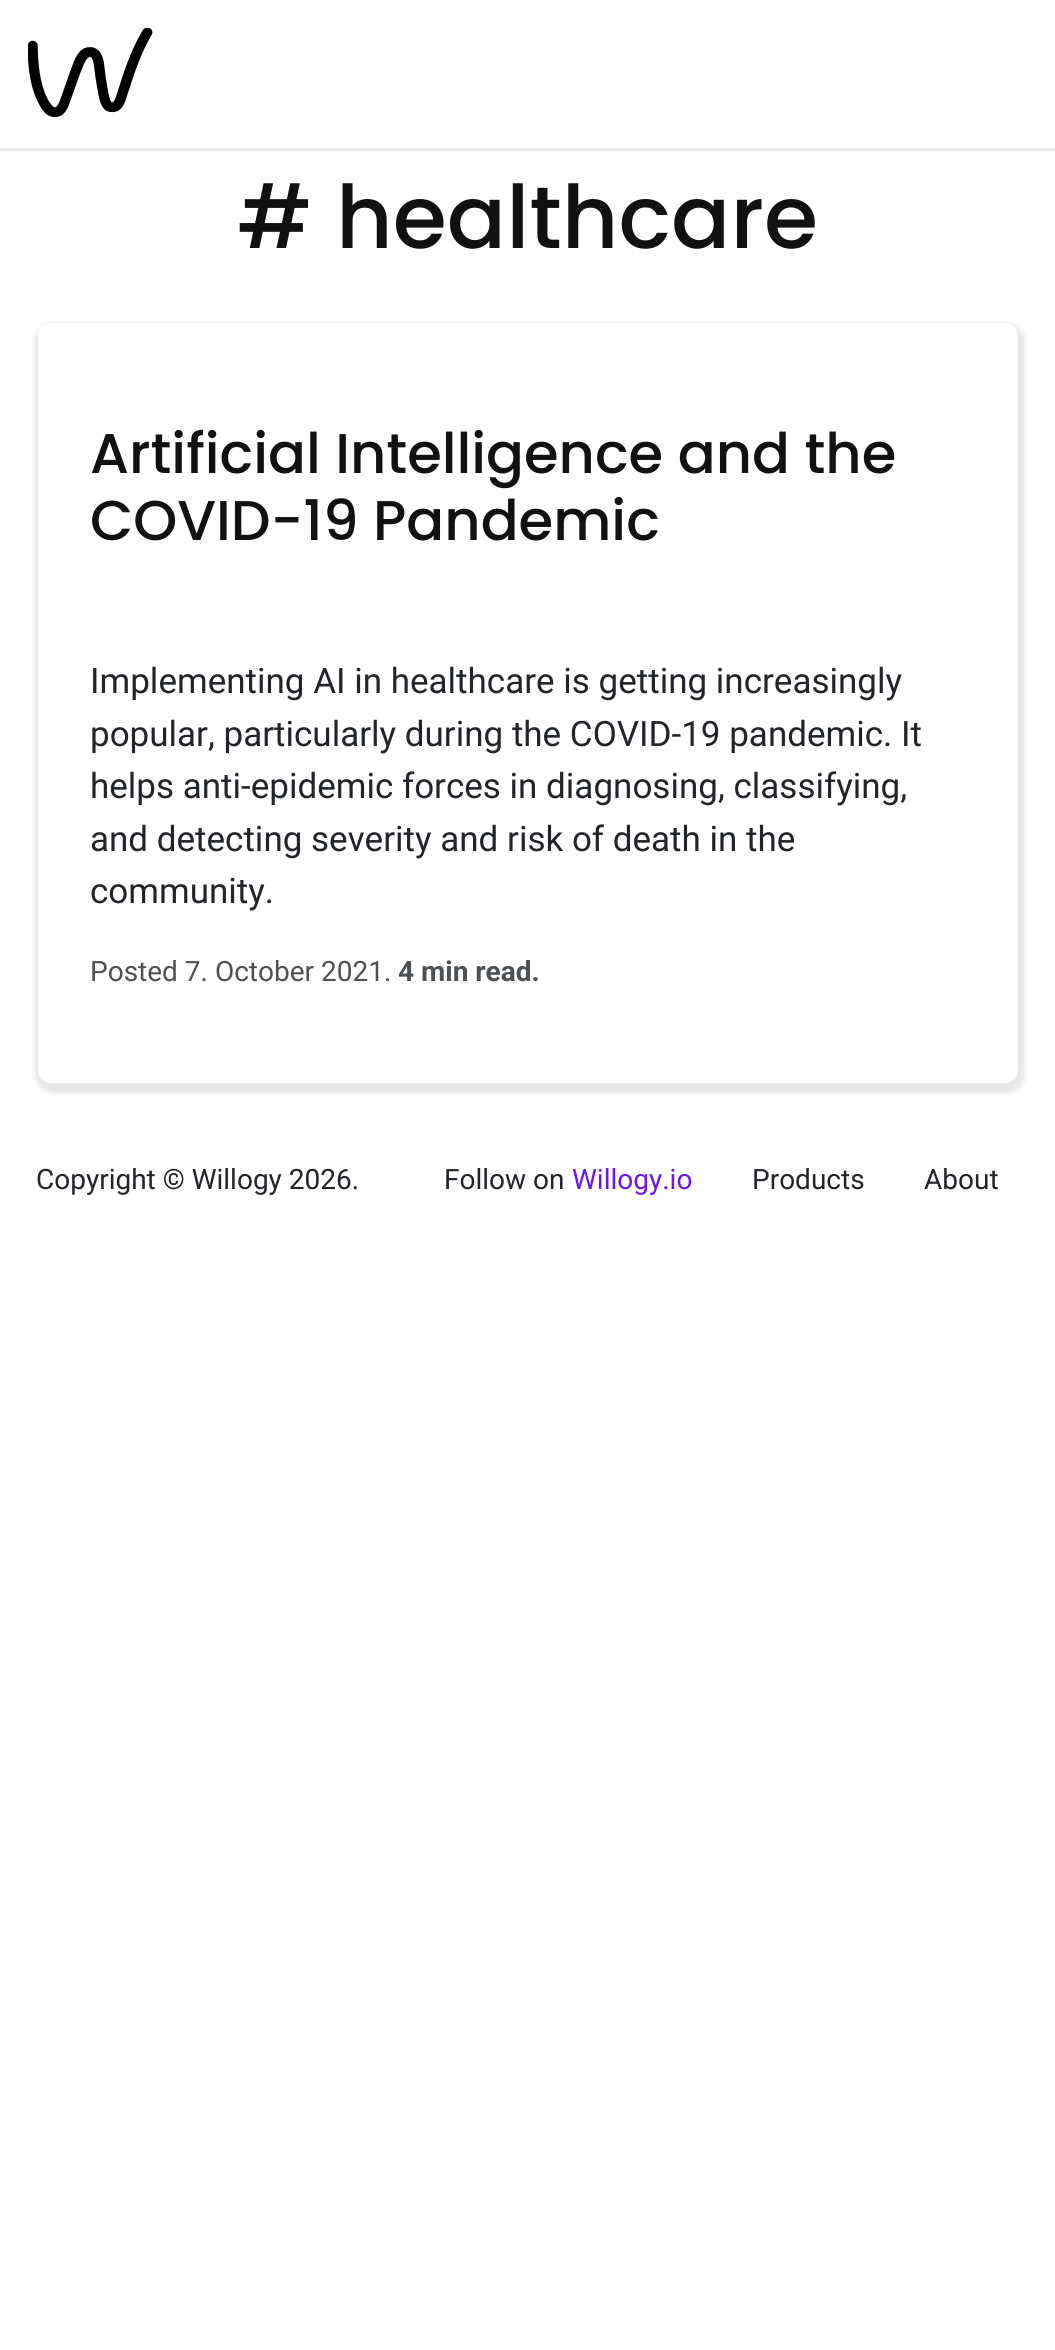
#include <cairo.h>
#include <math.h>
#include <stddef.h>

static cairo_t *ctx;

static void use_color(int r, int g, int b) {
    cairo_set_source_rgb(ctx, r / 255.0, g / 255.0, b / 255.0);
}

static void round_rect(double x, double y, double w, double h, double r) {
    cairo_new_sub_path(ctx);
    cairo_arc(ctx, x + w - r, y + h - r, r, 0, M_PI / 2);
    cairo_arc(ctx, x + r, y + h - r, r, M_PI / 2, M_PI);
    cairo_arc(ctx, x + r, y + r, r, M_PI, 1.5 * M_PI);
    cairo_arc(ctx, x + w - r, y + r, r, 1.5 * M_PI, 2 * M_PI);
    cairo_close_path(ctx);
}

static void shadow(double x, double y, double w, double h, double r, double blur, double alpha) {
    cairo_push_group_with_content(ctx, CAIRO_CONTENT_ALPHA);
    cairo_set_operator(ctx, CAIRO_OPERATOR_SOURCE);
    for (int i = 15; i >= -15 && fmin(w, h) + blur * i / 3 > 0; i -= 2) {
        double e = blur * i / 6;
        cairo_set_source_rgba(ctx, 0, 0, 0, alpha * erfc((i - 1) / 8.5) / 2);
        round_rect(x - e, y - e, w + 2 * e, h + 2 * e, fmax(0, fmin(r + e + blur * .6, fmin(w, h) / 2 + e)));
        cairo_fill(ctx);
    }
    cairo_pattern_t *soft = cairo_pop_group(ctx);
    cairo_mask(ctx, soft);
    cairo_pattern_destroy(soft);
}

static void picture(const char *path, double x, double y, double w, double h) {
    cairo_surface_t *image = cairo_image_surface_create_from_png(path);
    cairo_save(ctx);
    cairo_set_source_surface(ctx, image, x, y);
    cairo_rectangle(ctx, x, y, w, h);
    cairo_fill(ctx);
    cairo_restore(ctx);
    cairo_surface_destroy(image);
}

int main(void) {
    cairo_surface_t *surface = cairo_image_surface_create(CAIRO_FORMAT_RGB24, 1055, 2350);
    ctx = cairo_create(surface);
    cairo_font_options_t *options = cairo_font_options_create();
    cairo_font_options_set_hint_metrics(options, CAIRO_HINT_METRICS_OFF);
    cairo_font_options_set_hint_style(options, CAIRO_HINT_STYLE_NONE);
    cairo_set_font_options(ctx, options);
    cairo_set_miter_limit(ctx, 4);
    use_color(255, 255, 255);
    cairo_paint(ctx);
    use_color(236, 236, 236);
    cairo_rectangle(ctx, 0, 148, 1055, 3);
    cairo_fill(ctx);
    picture("img1.png", 28, 28, 125, 90);
    cairo_select_font_face(ctx, "Poppins Medium", CAIRO_FONT_SLANT_NORMAL, CAIRO_FONT_WEIGHT_NORMAL);
    cairo_set_font_size(ctx, 87.5);
    use_color(17, 17, 17);
    cairo_move_to(ctx, 237, 248);
    cairo_show_text(ctx, "# healthcare");
    use_color(0, 0, 0);
    shadow(35, 323, 990, 770, 18, 2.5, 0.1);
    use_color(255, 255, 255);
    round_rect(38, 323, 980, 760, 13);
    cairo_fill(ctx);
    cairo_set_font_size(ctx, 56);
    use_color(17, 17, 17);
    cairo_move_to(ctx, 90, 473);
    cairo_show_text(ctx, "Artificial Intelligence and the");
    cairo_move_to(ctx, 90, 540);
    cairo_show_text(ctx, "COVID-19 Pandemic");
    cairo_select_font_face(ctx, "Roboto", CAIRO_FONT_SLANT_NORMAL, CAIRO_FONT_WEIGHT_NORMAL);
    cairo_set_font_size(ctx, 35);
    use_color(33, 37, 41);
    cairo_move_to(ctx, 90, 693);
    cairo_show_text(ctx, "Implementing AI in healthcare is getting increasingly");
    cairo_move_to(ctx, 90, 746);
    cairo_show_text(ctx, "popular, particularly during the COVID-19 pandemic. It");
    cairo_move_to(ctx, 90, 798);
    cairo_show_text(ctx, "helps anti-epidemic forces in diagnosing, classifying,");
    cairo_move_to(ctx, 90, 851);
    cairo_show_text(ctx, "and detecting severity and risk of death in the");
    cairo_move_to(ctx, 90, 903);
    cairo_show_text(ctx, "community.");
    cairo_set_font_size(ctx, 28);
    use_color(77, 81, 84);
    cairo_move_to(ctx, 90, 981);
    cairo_show_text(ctx, "Posted 7. October 2021.");
    cairo_select_font_face(ctx, "Roboto", CAIRO_FONT_SLANT_NORMAL, CAIRO_FONT_WEIGHT_BOLD);
    cairo_move_to(ctx, 398, 981);
    cairo_show_text(ctx, "4 min read.");
    cairo_select_font_face(ctx, "Roboto", CAIRO_FONT_SLANT_NORMAL, CAIRO_FONT_WEIGHT_NORMAL);
    use_color(33, 37, 41);
    cairo_move_to(ctx, 36, 1189);
    cairo_show_text(ctx, "Copyright © Willogy 2026.");
    cairo_move_to(ctx, 444, 1189);
    cairo_show_text(ctx, "Follow on");
    use_color(107, 23, 230);
    cairo_move_to(ctx, 572, 1189);
    cairo_show_text(ctx, "Willogy.io");
    use_color(33, 37, 41);
    cairo_move_to(ctx, 752, 1189);
    cairo_show_text(ctx, "Products");
    cairo_move_to(ctx, 924, 1189);
    cairo_show_text(ctx, "About");
    cairo_surface_write_to_png(surface, "result.png");
    cairo_font_options_destroy(options);
    cairo_destroy(ctx);
    cairo_surface_destroy(surface);
    return 0;
}
